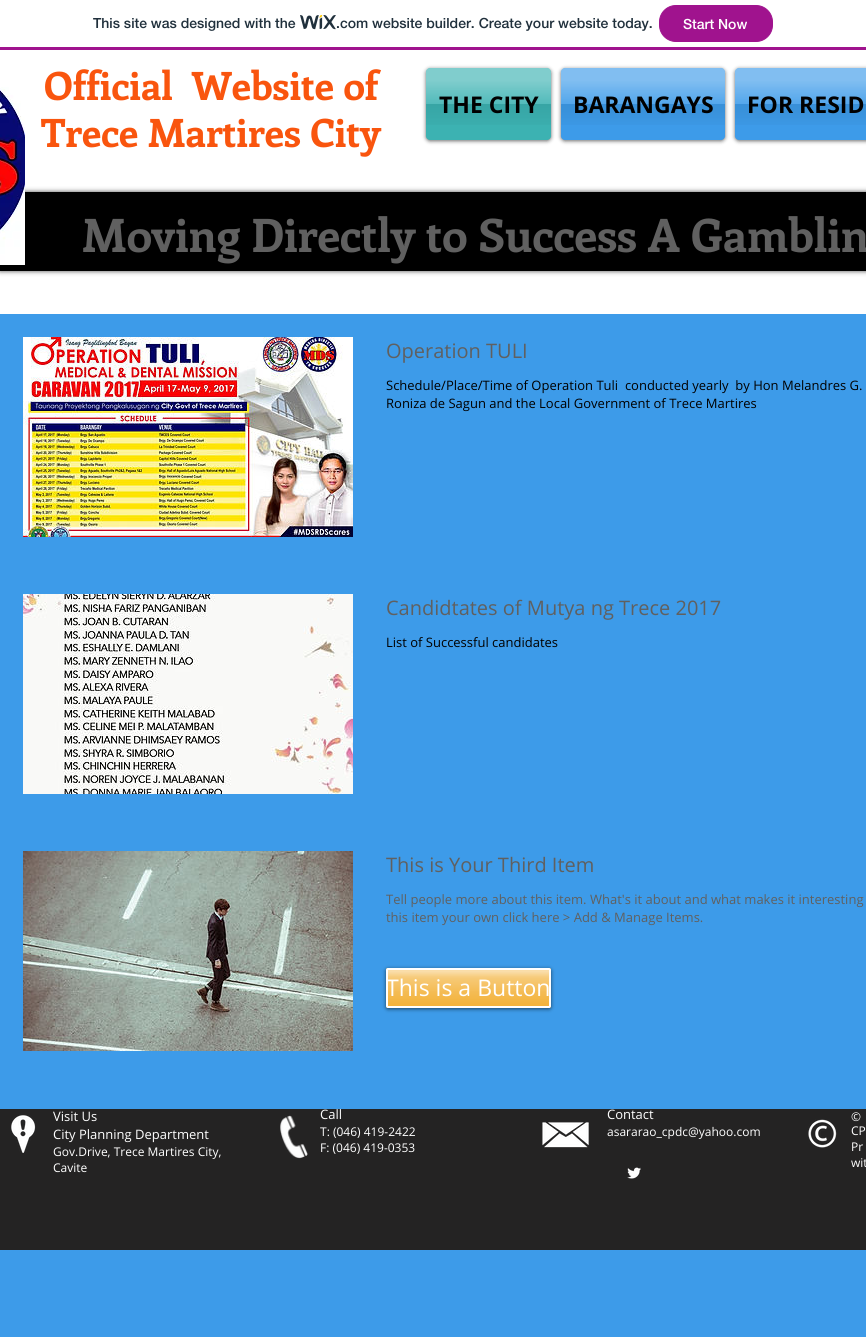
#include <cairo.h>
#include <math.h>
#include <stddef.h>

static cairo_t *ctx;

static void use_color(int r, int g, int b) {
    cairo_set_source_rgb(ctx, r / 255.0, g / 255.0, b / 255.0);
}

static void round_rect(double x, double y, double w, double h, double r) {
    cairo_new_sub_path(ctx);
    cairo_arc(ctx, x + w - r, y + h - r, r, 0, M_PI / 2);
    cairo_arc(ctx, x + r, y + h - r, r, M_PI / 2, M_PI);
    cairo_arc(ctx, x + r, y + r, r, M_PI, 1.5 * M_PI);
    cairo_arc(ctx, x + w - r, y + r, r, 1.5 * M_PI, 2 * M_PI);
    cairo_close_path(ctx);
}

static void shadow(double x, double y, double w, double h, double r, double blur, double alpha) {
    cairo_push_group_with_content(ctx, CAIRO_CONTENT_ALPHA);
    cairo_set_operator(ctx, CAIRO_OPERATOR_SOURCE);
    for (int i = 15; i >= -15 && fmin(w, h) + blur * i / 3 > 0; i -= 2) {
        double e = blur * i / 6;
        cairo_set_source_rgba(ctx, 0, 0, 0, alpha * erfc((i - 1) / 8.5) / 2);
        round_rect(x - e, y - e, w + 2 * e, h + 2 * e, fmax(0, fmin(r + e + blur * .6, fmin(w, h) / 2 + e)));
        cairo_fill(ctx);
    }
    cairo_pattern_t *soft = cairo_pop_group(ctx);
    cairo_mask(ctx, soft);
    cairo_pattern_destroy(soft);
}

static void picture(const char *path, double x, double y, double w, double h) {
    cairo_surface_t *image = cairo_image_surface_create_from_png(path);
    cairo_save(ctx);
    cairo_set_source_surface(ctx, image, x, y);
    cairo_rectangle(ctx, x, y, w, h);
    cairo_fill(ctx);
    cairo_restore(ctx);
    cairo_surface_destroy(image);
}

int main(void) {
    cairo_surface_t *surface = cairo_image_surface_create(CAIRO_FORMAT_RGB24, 866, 1337);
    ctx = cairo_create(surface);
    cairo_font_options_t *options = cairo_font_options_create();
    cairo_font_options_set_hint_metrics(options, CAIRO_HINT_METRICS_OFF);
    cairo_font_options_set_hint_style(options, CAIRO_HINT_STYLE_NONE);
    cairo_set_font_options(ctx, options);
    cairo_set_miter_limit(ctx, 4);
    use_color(255, 255, 255);
    cairo_paint(ctx);
    use_color(160, 19, 142);
    cairo_rectangle(ctx, 0, 47, 866, 3);
    cairo_fill(ctx);
    cairo_select_font_face(ctx, "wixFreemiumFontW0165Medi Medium", CAIRO_FONT_SLANT_NORMAL, CAIRO_FONT_WEIGHT_NORMAL);
    cairo_set_font_size(ctx, 14);
    use_color(32, 48, 60);
    cairo_move_to(ctx, 93, 28);
    cairo_show_text(ctx, "This site was designed with the");
    picture("img1.png", 300, 15, 36, 15);
    cairo_move_to(ctx, 336, 28);
    cairo_show_text(ctx, ".com website builder. Create your website today.");
    use_color(160, 19, 142);
    round_rect(659.5, 5.5, 113, 36, 16.5);
    cairo_fill_preserve(ctx);
    cairo_set_line_width(ctx, 1);
    cairo_stroke(ctx);
    use_color(255, 255, 255);
    cairo_move_to(ctx, 683, 29);
    cairo_show_text(ctx, "Start Now");
    use_color(0, 0, 0);
    shadow(0, 192, 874, 79, 0, 2.5, 0.7);
    use_color(0, 0, 0);
    cairo_rectangle(ctx, 0, 192, 866, 79);
    cairo_fill(ctx);
    picture("img2.png", 0, 87, 25, 178);
    cairo_select_font_face(ctx, "Enriqueta", CAIRO_FONT_SLANT_NORMAL, CAIRO_FONT_WEIGHT_BOLD);
    cairo_set_font_size(ctx, 39);
    use_color(249, 85, 14);
    cairo_move_to(ctx, 44, 100);
    cairo_show_text(ctx, "Official  Website of");
    cairo_move_to(ctx, 41, 147);
    cairo_show_text(ctx, "Trece Martires City");
    use_color(0, 0, 0);
    shadow(426, 69, 125, 72, 4, 2, 0.6);
    use_color(60, 178, 178);
    round_rect(426, 68, 125, 72, 4);
    cairo_fill(ctx);
    picture("img3.png", 426, 68, 125, 57);
    cairo_select_font_face(ctx, "Open Sans", CAIRO_FONT_SLANT_NORMAL, CAIRO_FONT_WEIGHT_BOLD);
    cairo_set_font_size(ctx, 23);
    use_color(0, 0, 0);
    cairo_move_to(ctx, 439, 113);
    cairo_show_text(ctx, "THE CITY");
    use_color(0, 0, 0);
    shadow(561, 69, 164, 72, 4, 2, 0.6);
    use_color(61, 155, 233);
    round_rect(561, 68, 164, 72, 4);
    cairo_fill(ctx);
    picture("img4.png", 561, 68, 164, 57);
    use_color(0, 0, 0);
    cairo_move_to(ctx, 573, 113);
    cairo_show_text(ctx, "BARANGAYS");
    use_color(0, 0, 0);
    shadow(735, 69, 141, 72, 4, 2, 0.6);
    use_color(61, 155, 233);
    round_rect(735, 68, 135, 72, 4);
    cairo_fill(ctx);
    picture("img5.png", 735, 68, 131, 57);
    use_color(0, 0, 0);
    cairo_move_to(ctx, 747, 113);
    cairo_show_text(ctx, "FOR RESID");
    cairo_select_font_face(ctx, "Enriqueta", CAIRO_FONT_SLANT_NORMAL, CAIRO_FONT_WEIGHT_BOLD);
    cairo_set_font_size(ctx, 46);
    use_color(96, 96, 96);
    cairo_move_to(ctx, 82, 252);
    cairo_show_text(ctx, "Moving Directly to Success A Gamblin");
    use_color(61, 155, 233);
    cairo_rectangle(ctx, 0, 314, 866, 1023);
    cairo_fill(ctx);
    picture("img6.png", 23, 337, 330, 200);
    cairo_select_font_face(ctx, "Open Sans", CAIRO_FONT_SLANT_NORMAL, CAIRO_FONT_WEIGHT_NORMAL);
    cairo_set_font_size(ctx, 20);
    use_color(96, 96, 96);
    cairo_move_to(ctx, 386, 358);
    cairo_show_text(ctx, "Operation TULI");
    cairo_set_font_size(ctx, 13);
    use_color(0, 0, 0);
    cairo_move_to(ctx, 386, 390);
    cairo_show_text(ctx, "Schedule/Place/Time of Operation Tuli  conducted yearly  by Hon Melandres G.");
    cairo_move_to(ctx, 386, 408);
    cairo_show_text(ctx, "Roniza de Sagun and the Local Government of Trece Martires");
    picture("img7.png", 23, 594, 330, 200);
    cairo_set_font_size(ctx, 20);
    use_color(96, 96, 96);
    cairo_move_to(ctx, 386, 615);
    cairo_show_text(ctx, "Candidtates of Mutya ng Trece 2017");
    cairo_set_font_size(ctx, 13);
    use_color(0, 0, 0);
    cairo_move_to(ctx, 386, 647);
    cairo_show_text(ctx, "List of Successful candidates");
    picture("img8.png", 23, 851, 330, 200);
    cairo_set_font_size(ctx, 20);
    use_color(96, 96, 96);
    cairo_move_to(ctx, 386, 872);
    cairo_show_text(ctx, "This is Your Third Item");
    cairo_set_font_size(ctx, 13);
    cairo_move_to(ctx, 386, 904);
    cairo_show_text(ctx, "Tell people more about this item. What's it about and what makes it interesting");
    cairo_move_to(ctx, 386, 922);
    cairo_show_text(ctx, "this item your own click here > Add & Manage Items.");
    use_color(0, 0, 0);
    shadow(386, 969, 165, 40, 2, 2, 0.6);
    use_color(242, 173, 46);
    round_rect(386, 968, 165, 40, 2);
    cairo_fill(ctx);
    picture("img9.png", 386, 970, 165, 38);
    round_rect(387, 969, 163, 38, 1);
    use_color(255, 255, 255);
    cairo_set_line_width(ctx, 2);
    cairo_stroke(ctx);
    cairo_save(ctx);
    cairo_rectangle(ctx, 388, 970, 161, 36);
    cairo_clip(ctx);
    cairo_set_font_size(ctx, 23);
    cairo_move_to(ctx, 386, 996);
    cairo_show_text(ctx, "This is a Button");
    cairo_restore(ctx);
    use_color(36, 35, 35);
    cairo_rectangle(ctx, 0, 1109, 866, 141);
    cairo_fill(ctx);
    picture("img10.png", 11, 1115, 25, 38);
    use_color(255, 255, 255);
    cairo_move_to(ctx, 53, 1121);
    cairo_show_text(ctx, "Visit Us");
    cairo_move_to(ctx, 53, 1139);
    cairo_show_text(ctx, "City Planning Department");
    cairo_set_font_size(ctx, 12);
    cairo_move_to(ctx, 53, 1156);
    cairo_show_text(ctx, "Gov.Drive, Trece Martires City,");
    cairo_move_to(ctx, 53, 1172);
    cairo_show_text(ctx, "Cavite");
    picture("img11.png", 280, 1115, 28, 44);
    cairo_set_font_size(ctx, 13);
    cairo_move_to(ctx, 320, 1119);
    cairo_show_text(ctx, "Call");
    cairo_set_font_size(ctx, 12);
    cairo_move_to(ctx, 320, 1136);
    cairo_show_text(ctx, "T: (046) 419-2422");
    cairo_move_to(ctx, 320, 1152);
    cairo_show_text(ctx, "F: (046) 419-0353");
    picture("img12.png", 542, 1122, 47, 26);
    cairo_set_font_size(ctx, 13);
    cairo_move_to(ctx, 607, 1119);
    cairo_show_text(ctx, "Contact");
    cairo_set_font_size(ctx, 12);
    cairo_move_to(ctx, 607, 1136);
    cairo_show_text(ctx, "asararao_cpdc@yahoo.com");
    picture("img13.png", 808, 1119, 29, 29);
    cairo_move_to(ctx, 851, 1121);
    cairo_show_text(ctx, "©");
    cairo_move_to(ctx, 851, 1135);
    cairo_show_text(ctx, "CP");
    cairo_move_to(ctx, 851, 1151);
    cairo_show_text(ctx, "Pr");
    cairo_move_to(ctx, 851, 1167);
    cairo_show_text(ctx, "wit");
    picture("img14.png", 627, 1167, 14, 12);
    cairo_surface_write_to_png(surface, "result.png");
    cairo_font_options_destroy(options);
    cairo_destroy(ctx);
    cairo_surface_destroy(surface);
    return 0;
}
